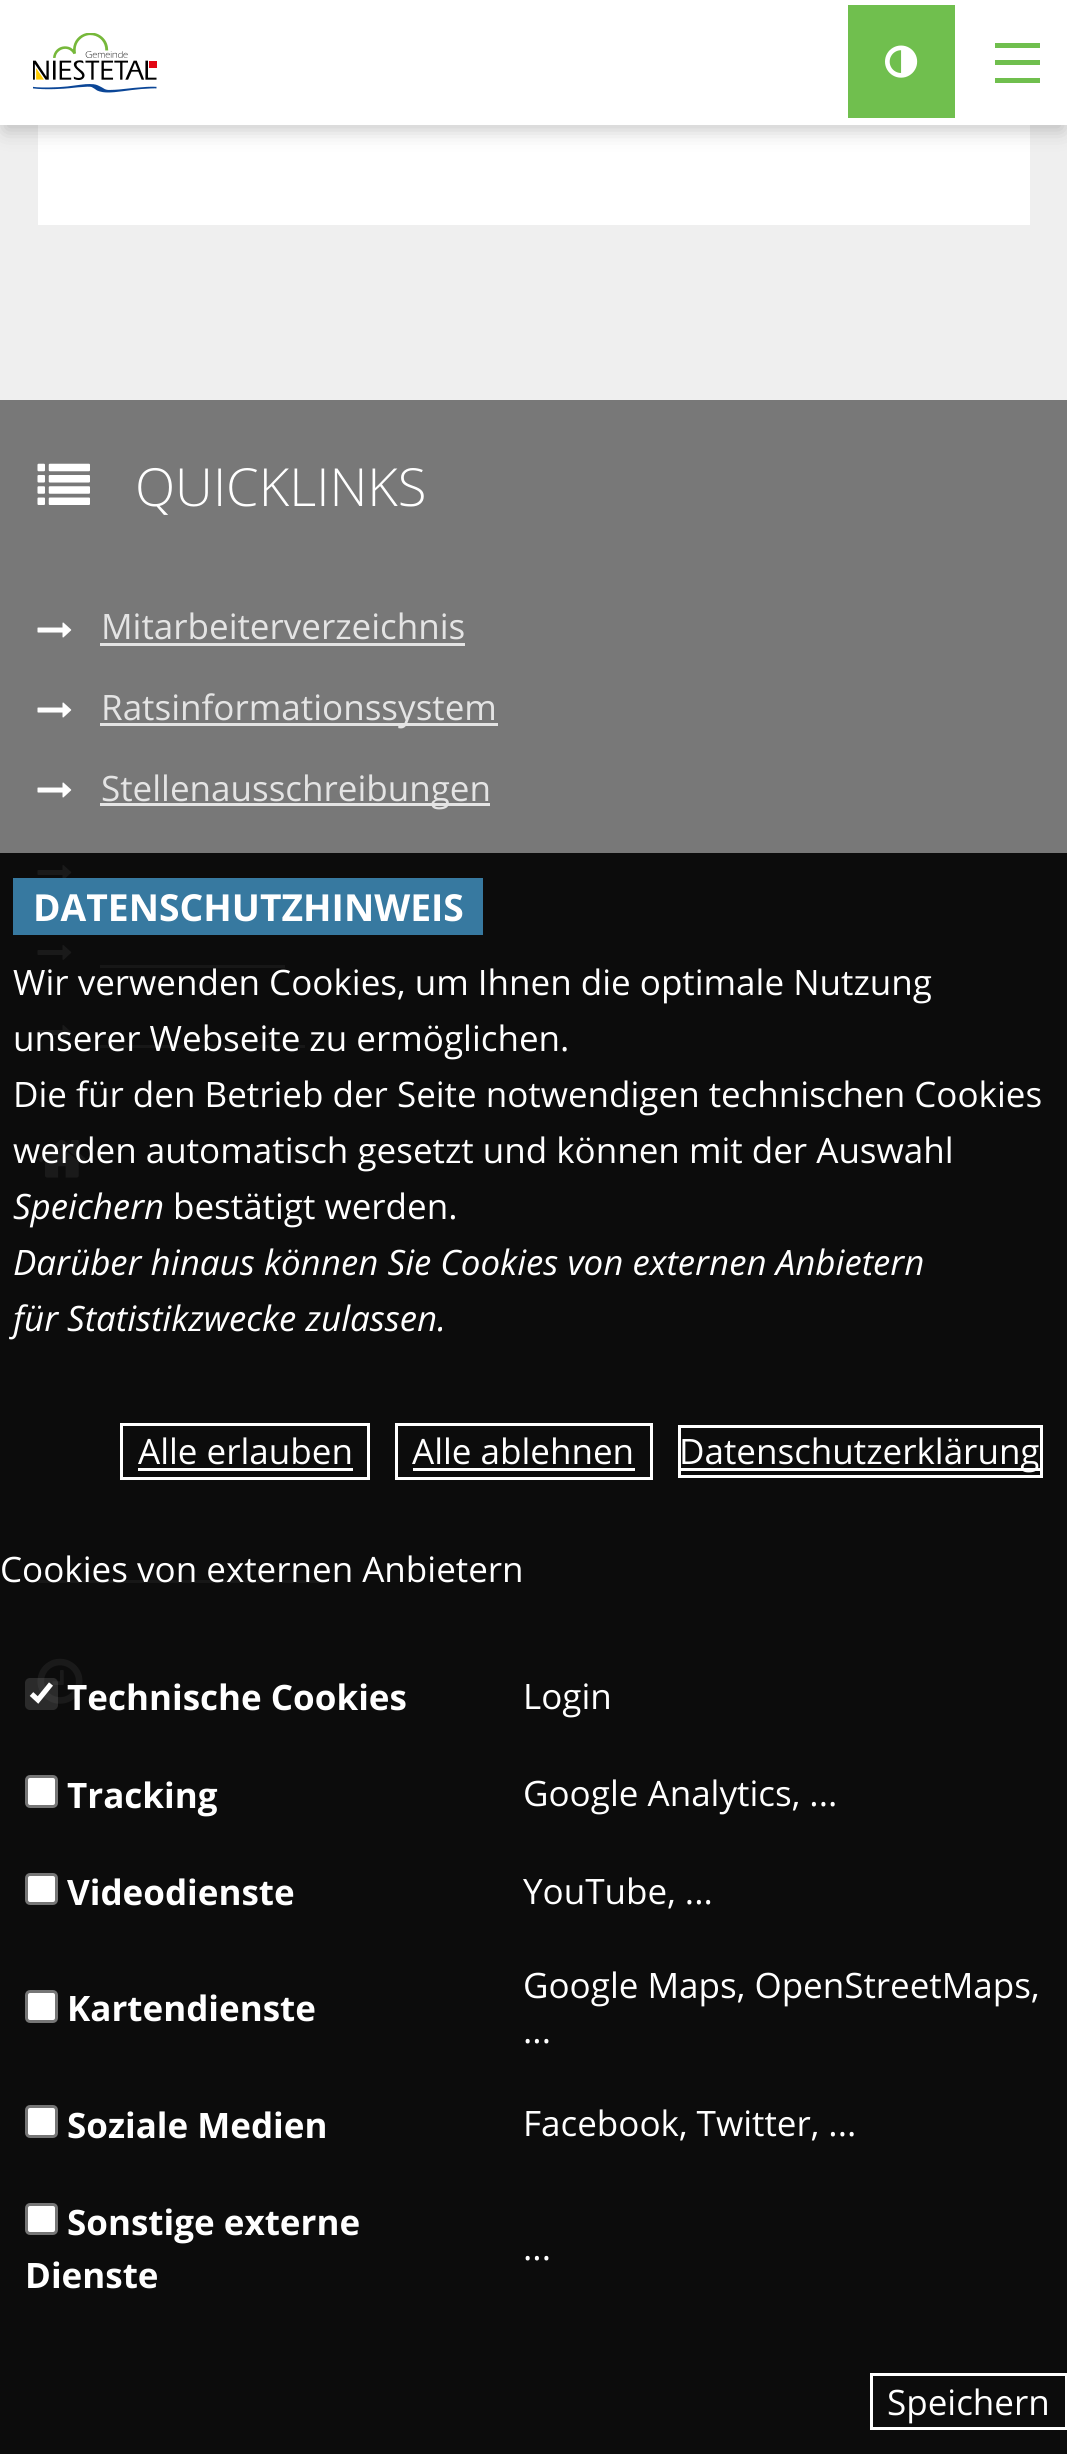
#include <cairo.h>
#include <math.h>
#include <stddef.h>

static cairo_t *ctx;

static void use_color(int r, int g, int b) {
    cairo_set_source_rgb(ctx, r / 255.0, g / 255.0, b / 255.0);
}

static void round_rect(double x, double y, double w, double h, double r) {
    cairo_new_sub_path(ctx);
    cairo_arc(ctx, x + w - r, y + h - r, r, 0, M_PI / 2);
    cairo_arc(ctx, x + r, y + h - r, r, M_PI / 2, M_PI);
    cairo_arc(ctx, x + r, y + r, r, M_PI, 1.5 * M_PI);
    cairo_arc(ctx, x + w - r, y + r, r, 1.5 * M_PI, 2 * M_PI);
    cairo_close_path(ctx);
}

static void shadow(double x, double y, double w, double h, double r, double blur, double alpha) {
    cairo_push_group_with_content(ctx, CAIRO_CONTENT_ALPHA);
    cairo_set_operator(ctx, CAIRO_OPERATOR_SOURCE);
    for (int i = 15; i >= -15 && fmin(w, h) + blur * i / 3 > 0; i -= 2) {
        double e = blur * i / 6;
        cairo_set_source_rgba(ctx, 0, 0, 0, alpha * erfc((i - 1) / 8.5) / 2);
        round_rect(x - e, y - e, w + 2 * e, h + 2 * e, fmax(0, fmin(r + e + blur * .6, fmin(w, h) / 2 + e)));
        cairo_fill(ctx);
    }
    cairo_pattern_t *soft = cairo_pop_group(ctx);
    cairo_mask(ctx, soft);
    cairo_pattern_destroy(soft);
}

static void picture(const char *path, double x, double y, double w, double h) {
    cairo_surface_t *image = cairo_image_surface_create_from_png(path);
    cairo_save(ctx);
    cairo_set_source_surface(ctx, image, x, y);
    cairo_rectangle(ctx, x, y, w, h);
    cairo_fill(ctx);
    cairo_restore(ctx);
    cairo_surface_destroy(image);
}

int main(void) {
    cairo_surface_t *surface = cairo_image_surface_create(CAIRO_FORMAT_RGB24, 1067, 2454);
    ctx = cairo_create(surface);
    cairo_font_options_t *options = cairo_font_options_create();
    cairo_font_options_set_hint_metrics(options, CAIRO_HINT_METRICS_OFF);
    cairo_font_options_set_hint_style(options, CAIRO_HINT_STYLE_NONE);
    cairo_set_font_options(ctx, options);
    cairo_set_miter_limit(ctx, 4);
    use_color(239, 239, 239);
    cairo_paint(ctx);
    use_color(255, 255, 255);
    cairo_rectangle(ctx, 38, 125, 992, 100);
    cairo_fill(ctx);
    use_color(0, 0, 0);
    shadow(5, 15, 1058, 115, 0, 10, 0.22);
    use_color(255, 255, 255);
    cairo_rectangle(ctx, 0, 0, 1067, 125);
    cairo_fill(ctx);
    picture("img1.png", 33, 33, 124, 60);
    use_color(112, 191, 78);
    cairo_rectangle(ctx, 848, 5, 107, 113);
    cairo_fill(ctx);
    picture("img2.png", 885, 45, 33, 33);
    cairo_rectangle(ctx, 995, 78, 45, 5);
    cairo_fill(ctx);
    cairo_rectangle(ctx, 995, 60, 45, 5);
    cairo_fill(ctx);
    cairo_rectangle(ctx, 995, 43, 45, 5);
    cairo_fill(ctx);
    use_color(120, 120, 120);
    cairo_rectangle(ctx, 0, 400, 1067, 453);
    cairo_fill(ctx);
    use_color(12, 12, 12);
    cairo_rectangle(ctx, 0, 853, 1067, 1601);
    cairo_fill(ctx);
    picture("img3.png", 37, 463, 53, 42);
    cairo_select_font_face(ctx, "Open Sans Light", CAIRO_FONT_SLANT_NORMAL, CAIRO_FONT_WEIGHT_NORMAL);
    cairo_set_font_size(ctx, 52.5);
    use_color(255, 255, 255);
    cairo_move_to(ctx, 135, 506);
    cairo_show_text(ctx, "QUICKLINKS");
    picture("img4.png", 37, 622, 35, 16);
    cairo_select_font_face(ctx, "Open Sans", CAIRO_FONT_SLANT_NORMAL, CAIRO_FONT_WEIGHT_NORMAL);
    cairo_set_font_size(ctx, 35);
    use_color(228, 228, 228);
    cairo_move_to(ctx, 101, 639);
    cairo_show_text(ctx, "Mitarbeiterverzeichnis");
    cairo_rectangle(ctx, 100, 643, 365, 3);
    cairo_fill(ctx);
    picture("img4.png", 37, 702, 35, 16);
    cairo_rectangle(ctx, 100, 723, 398, 3);
    cairo_fill(ctx);
    cairo_move_to(ctx, 101, 720);
    cairo_show_text(ctx, "Ratsinformationssystem");
    picture("img4.png", 37, 782, 35, 16);
    cairo_rectangle(ctx, 100, 803, 390, 3);
    cairo_fill(ctx);
    cairo_move_to(ctx, 101, 801);
    cairo_show_text(ctx, "Stellenausschreibungen");
    picture("img5.png", 37, 865, 35, 13);
    picture("img6.png", 37, 945, 35, 15);
    use_color(23, 23, 23);
    cairo_rectangle(ctx, 100, 965, 185, 3);
    cairo_fill(ctx);
    picture("img6.png", 37, 1025, 35, 15);
    cairo_rectangle(ctx, 100, 1045, 205, 3);
    cairo_fill(ctx);
    picture("img7.png", 38, 1139, 48, 39);
    cairo_rectangle(ctx, 38, 1580, 285, 3);
    cairo_fill(ctx);
    picture("img8.png", 37, 1658, 46, 46);
    use_color(55, 121, 160);
    cairo_rectangle(ctx, 13, 878, 470, 57);
    cairo_fill(ctx);
    cairo_select_font_face(ctx, "Open Sans", CAIRO_FONT_SLANT_NORMAL, CAIRO_FONT_WEIGHT_BOLD);
    cairo_set_font_size(ctx, 37.25);
    use_color(255, 255, 255);
    cairo_move_to(ctx, 33, 921);
    cairo_show_text(ctx, "DATENSCHUTZHINWEIS");
    cairo_select_font_face(ctx, "Open Sans", CAIRO_FONT_SLANT_NORMAL, CAIRO_FONT_WEIGHT_NORMAL);
    cairo_set_font_size(ctx, 35);
    cairo_move_to(ctx, 13, 995);
    cairo_show_text(ctx, "Wir verwenden Cookies, um Ihnen die optimale Nutzung");
    cairo_move_to(ctx, 13, 1051);
    cairo_show_text(ctx, "unserer Webseite zu ermöglichen.");
    cairo_move_to(ctx, 13, 1107);
    cairo_show_text(ctx, "Die für den Betrieb der Seite notwendigen technischen Cookies");
    cairo_move_to(ctx, 13, 1163);
    cairo_show_text(ctx, "werden automatisch gesetzt und können mit der Auswahl");
    cairo_select_font_face(ctx, "Open Sans", CAIRO_FONT_SLANT_ITALIC, CAIRO_FONT_WEIGHT_NORMAL);
    cairo_move_to(ctx, 13, 1219);
    cairo_show_text(ctx, "Speichern");
    cairo_select_font_face(ctx, "Open Sans", CAIRO_FONT_SLANT_NORMAL, CAIRO_FONT_WEIGHT_NORMAL);
    cairo_move_to(ctx, 173, 1219);
    cairo_show_text(ctx, "bestätigt werden.");
    cairo_select_font_face(ctx, "Open Sans", CAIRO_FONT_SLANT_ITALIC, CAIRO_FONT_WEIGHT_NORMAL);
    cairo_move_to(ctx, 13, 1275);
    cairo_show_text(ctx, "Darüber hinaus können Sie Cookies von externen Anbietern");
    cairo_move_to(ctx, 13, 1331);
    cairo_show_text(ctx, "für Statistikzwecke zulassen.");
    cairo_rectangle(ctx, 121.5, 1424.5, 247, 54);
    cairo_set_line_width(ctx, 3);
    cairo_stroke(ctx);
    cairo_select_font_face(ctx, "Open Sans", CAIRO_FONT_SLANT_NORMAL, CAIRO_FONT_WEIGHT_NORMAL);
    cairo_move_to(ctx, 138, 1464);
    cairo_show_text(ctx, "Alle erlauben");
    cairo_rectangle(ctx, 138, 1468, 215, 3);
    cairo_fill(ctx);
    cairo_rectangle(ctx, 396.5, 1424.5, 255, 54);
    cairo_stroke(ctx);
    cairo_move_to(ctx, 412, 1464);
    cairo_show_text(ctx, "Alle ablehnen");
    cairo_rectangle(ctx, 413, 1468, 222, 3);
    cairo_fill(ctx);
    cairo_rectangle(ctx, 679.5, 1426.5, 362, 50);
    cairo_stroke(ctx);
    cairo_rectangle(ctx, 680, 1468, 360, 3);
    cairo_fill(ctx);
    cairo_move_to(ctx, 679, 1464);
    cairo_show_text(ctx, "Datenschutzerklärung");
    cairo_move_to(ctx, 0, 1582);
    cairo_show_text(ctx, "Cookies von externen Anbietern");
    cairo_set_source_rgba(ctx, 0.463, 0.463, 0.463, 0.3);
    round_rect(25, 1678, 33, 32, 5);
    cairo_fill(ctx);
    cairo_new_path(ctx);
    cairo_move_to(ctx, 31.5, 1694);
    cairo_line_to(ctx, 38, 1700);
    cairo_line_to(ctx, 51, 1684);
    use_color(255, 255, 255);
    cairo_set_line_width(ctx, 5.2);
    cairo_stroke(ctx);
    cairo_select_font_face(ctx, "Open Sans", CAIRO_FONT_SLANT_NORMAL, CAIRO_FONT_WEIGHT_BOLD);
    cairo_move_to(ctx, 67, 1710);
    cairo_show_text(ctx, "Technische Cookies");
    cairo_select_font_face(ctx, "Open Sans", CAIRO_FONT_SLANT_NORMAL, CAIRO_FONT_WEIGHT_NORMAL);
    cairo_move_to(ctx, 523, 1709);
    cairo_show_text(ctx, "Login");
    round_rect(26.5, 1776.5, 30, 30, 3.5);
    cairo_fill_preserve(ctx);
    use_color(118, 118, 118);
    cairo_set_line_width(ctx, 3);
    cairo_stroke(ctx);
    cairo_select_font_face(ctx, "Open Sans", CAIRO_FONT_SLANT_NORMAL, CAIRO_FONT_WEIGHT_BOLD);
    use_color(255, 255, 255);
    cairo_move_to(ctx, 67, 1808);
    cairo_show_text(ctx, "Tracking");
    cairo_select_font_face(ctx, "Open Sans", CAIRO_FONT_SLANT_NORMAL, CAIRO_FONT_WEIGHT_NORMAL);
    cairo_move_to(ctx, 523, 1806);
    cairo_show_text(ctx, "Google Analytics, ...");
    round_rect(26.5, 1874.5, 30, 29, 3.5);
    cairo_fill_preserve(ctx);
    use_color(118, 118, 118);
    cairo_stroke(ctx);
    cairo_select_font_face(ctx, "Open Sans", CAIRO_FONT_SLANT_NORMAL, CAIRO_FONT_WEIGHT_BOLD);
    use_color(255, 255, 255);
    cairo_move_to(ctx, 67, 1905);
    cairo_show_text(ctx, "Videodienste");
    cairo_select_font_face(ctx, "Open Sans", CAIRO_FONT_SLANT_NORMAL, CAIRO_FONT_WEIGHT_NORMAL);
    cairo_move_to(ctx, 523, 1904);
    cairo_show_text(ctx, "YouTube, ...");
    round_rect(26.5, 1991.5, 30, 30, 3.5);
    cairo_fill_preserve(ctx);
    use_color(118, 118, 118);
    cairo_stroke(ctx);
    cairo_select_font_face(ctx, "Open Sans", CAIRO_FONT_SLANT_NORMAL, CAIRO_FONT_WEIGHT_BOLD);
    use_color(255, 255, 255);
    cairo_move_to(ctx, 67, 2021);
    cairo_show_text(ctx, "Kartendienste");
    cairo_select_font_face(ctx, "Open Sans", CAIRO_FONT_SLANT_NORMAL, CAIRO_FONT_WEIGHT_NORMAL);
    cairo_move_to(ctx, 523, 1998);
    cairo_show_text(ctx, "Google Maps, OpenStreetMaps,");
    cairo_move_to(ctx, 523, 2043);
    cairo_show_text(ctx, "...");
    round_rect(26.5, 2106.5, 30, 30, 3.5);
    cairo_fill_preserve(ctx);
    use_color(118, 118, 118);
    cairo_stroke(ctx);
    cairo_select_font_face(ctx, "Open Sans", CAIRO_FONT_SLANT_NORMAL, CAIRO_FONT_WEIGHT_BOLD);
    use_color(255, 255, 255);
    cairo_move_to(ctx, 67, 2138);
    cairo_show_text(ctx, "Soziale Medien");
    cairo_select_font_face(ctx, "Open Sans", CAIRO_FONT_SLANT_NORMAL, CAIRO_FONT_WEIGHT_NORMAL);
    cairo_move_to(ctx, 523, 2136);
    cairo_show_text(ctx, "Facebook, Twitter, ...");
    round_rect(26.5, 2204.5, 30, 29, 3.5);
    cairo_fill_preserve(ctx);
    use_color(118, 118, 118);
    cairo_stroke(ctx);
    cairo_select_font_face(ctx, "Open Sans", CAIRO_FONT_SLANT_NORMAL, CAIRO_FONT_WEIGHT_BOLD);
    use_color(255, 255, 255);
    cairo_move_to(ctx, 67, 2235);
    cairo_show_text(ctx, "Sonstige externe");
    cairo_move_to(ctx, 25, 2288);
    cairo_show_text(ctx, "Dienste");
    cairo_select_font_face(ctx, "Open Sans", CAIRO_FONT_SLANT_NORMAL, CAIRO_FONT_WEIGHT_NORMAL);
    cairo_move_to(ctx, 523, 2260);
    cairo_show_text(ctx, "...");
    cairo_rectangle(ctx, 871.5, 2374.5, 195, 54);
    cairo_stroke(ctx);
    cairo_move_to(ctx, 887, 2415);
    cairo_show_text(ctx, "Speichern");
    cairo_surface_write_to_png(surface, "result.png");
    cairo_font_options_destroy(options);
    cairo_destroy(ctx);
    cairo_surface_destroy(surface);
    return 0;
}
